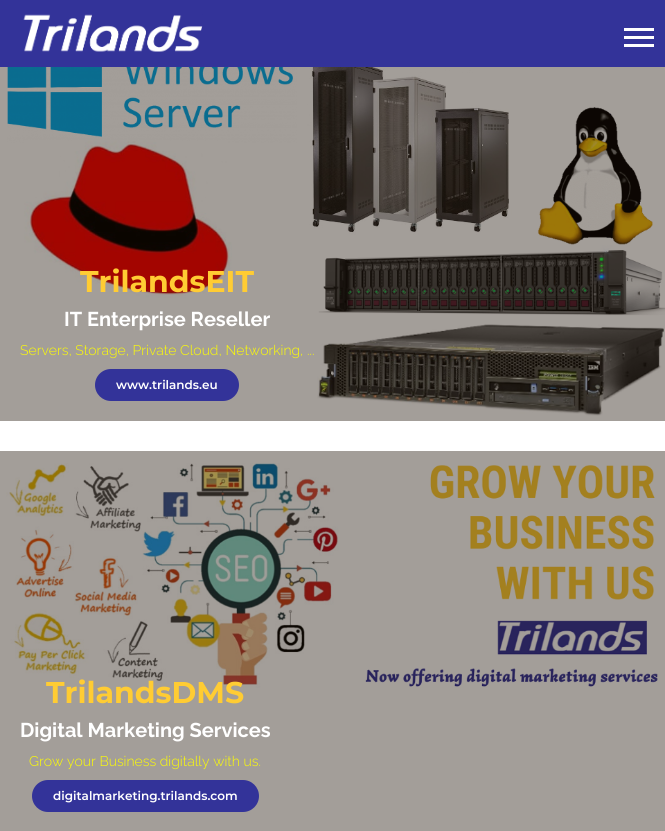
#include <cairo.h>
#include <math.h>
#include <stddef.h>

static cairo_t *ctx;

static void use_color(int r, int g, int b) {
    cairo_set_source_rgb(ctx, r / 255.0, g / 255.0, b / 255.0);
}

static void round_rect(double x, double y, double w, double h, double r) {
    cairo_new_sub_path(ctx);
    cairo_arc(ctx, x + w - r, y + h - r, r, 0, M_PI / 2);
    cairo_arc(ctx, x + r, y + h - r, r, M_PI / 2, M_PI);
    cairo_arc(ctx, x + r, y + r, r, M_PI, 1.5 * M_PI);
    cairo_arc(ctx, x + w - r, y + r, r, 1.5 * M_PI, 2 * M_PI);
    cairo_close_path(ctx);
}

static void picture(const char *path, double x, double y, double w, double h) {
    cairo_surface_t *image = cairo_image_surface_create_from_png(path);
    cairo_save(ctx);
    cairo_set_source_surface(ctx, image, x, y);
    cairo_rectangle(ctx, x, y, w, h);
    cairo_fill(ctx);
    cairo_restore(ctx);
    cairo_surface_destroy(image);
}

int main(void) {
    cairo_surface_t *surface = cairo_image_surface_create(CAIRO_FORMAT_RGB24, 665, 831);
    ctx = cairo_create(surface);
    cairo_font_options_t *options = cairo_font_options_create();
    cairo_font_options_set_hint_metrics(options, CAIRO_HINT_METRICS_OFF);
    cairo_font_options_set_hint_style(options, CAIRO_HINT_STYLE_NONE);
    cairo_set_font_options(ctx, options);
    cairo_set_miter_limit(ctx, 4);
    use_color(255, 255, 255);
    cairo_paint(ctx);
    use_color(163, 158, 153);
    cairo_rectangle(ctx, 0, 451, 665, 380);
    cairo_fill(ctx);
    cairo_rectangle(ctx, 0, 67, 665, 354);
    cairo_fill(ctx);
    use_color(51, 51, 153);
    cairo_rectangle(ctx, 0, 0, 665, 67);
    cairo_fill(ctx);
    picture("img1.png", 23, 14, 180, 38);
    use_color(255, 255, 255);
    cairo_rectangle(ctx, 624, 28, 30, 3);
    cairo_fill(ctx);
    cairo_rectangle(ctx, 624, 36, 30, 3);
    cairo_fill(ctx);
    cairo_rectangle(ctx, 624, 44, 30, 3);
    cairo_fill(ctx);
    picture("img2.png", 7, 67, 658, 349);
    cairo_select_font_face(ctx, "Montserrat", CAIRO_FONT_SLANT_NORMAL, CAIRO_FONT_WEIGHT_BOLD);
    cairo_set_font_size(ctx, 30);
    use_color(255, 204, 51);
    cairo_move_to(ctx, 80, 292);
    cairo_show_text(ctx, "TrilandsEIT");
    cairo_select_font_face(ctx, "Raleway", CAIRO_FONT_SLANT_NORMAL, CAIRO_FONT_WEIGHT_BOLD);
    cairo_set_font_size(ctx, 20);
    use_color(255, 255, 255);
    cairo_move_to(ctx, 64, 326);
    cairo_show_text(ctx, "IT Enterprise Reseller");
    cairo_select_font_face(ctx, "Raleway Light", CAIRO_FONT_SLANT_NORMAL, CAIRO_FONT_WEIGHT_NORMAL);
    cairo_set_font_size(ctx, 14);
    use_color(255, 255, 0);
    cairo_move_to(ctx, 20, 355);
    cairo_show_text(ctx, "Servers, Storage, Private Cloud, Networking, ...");
    use_color(51, 51, 153);
    round_rect(95, 369, 144, 32, 16);
    cairo_fill(ctx);
    cairo_select_font_face(ctx, "Montserrat SemiBold", CAIRO_FONT_SLANT_NORMAL, CAIRO_FONT_WEIGHT_NORMAL);
    cairo_set_font_size(ctx, 12);
    use_color(255, 255, 255);
    cairo_move_to(ctx, 116, 389);
    cairo_show_text(ctx, "www.trilands.eu");
    picture("img3.png", 6, 463, 652, 225);
    cairo_select_font_face(ctx, "Montserrat", CAIRO_FONT_SLANT_NORMAL, CAIRO_FONT_WEIGHT_BOLD);
    cairo_set_font_size(ctx, 30);
    use_color(255, 204, 51);
    cairo_move_to(ctx, 46, 703);
    cairo_show_text(ctx, "TrilandsDMS");
    cairo_select_font_face(ctx, "Raleway", CAIRO_FONT_SLANT_NORMAL, CAIRO_FONT_WEIGHT_BOLD);
    cairo_set_font_size(ctx, 20);
    use_color(255, 255, 255);
    cairo_move_to(ctx, 20, 737);
    cairo_show_text(ctx, "Digital Marketing Services");
    cairo_select_font_face(ctx, "Raleway Light", CAIRO_FONT_SLANT_NORMAL, CAIRO_FONT_WEIGHT_NORMAL);
    cairo_set_font_size(ctx, 14);
    use_color(255, 255, 0);
    cairo_move_to(ctx, 29, 766);
    cairo_show_text(ctx, "Grow your Business digitally with us.");
    use_color(51, 51, 153);
    round_rect(32, 780, 227, 32, 16);
    cairo_fill(ctx);
    cairo_select_font_face(ctx, "Montserrat SemiBold", CAIRO_FONT_SLANT_NORMAL, CAIRO_FONT_WEIGHT_NORMAL);
    cairo_set_font_size(ctx, 12);
    use_color(255, 255, 255);
    cairo_move_to(ctx, 53, 800);
    cairo_show_text(ctx, "digitalmarketing.trilands.com");
    cairo_surface_write_to_png(surface, "result.png");
    cairo_font_options_destroy(options);
    cairo_destroy(ctx);
    cairo_surface_destroy(surface);
    return 0;
}
